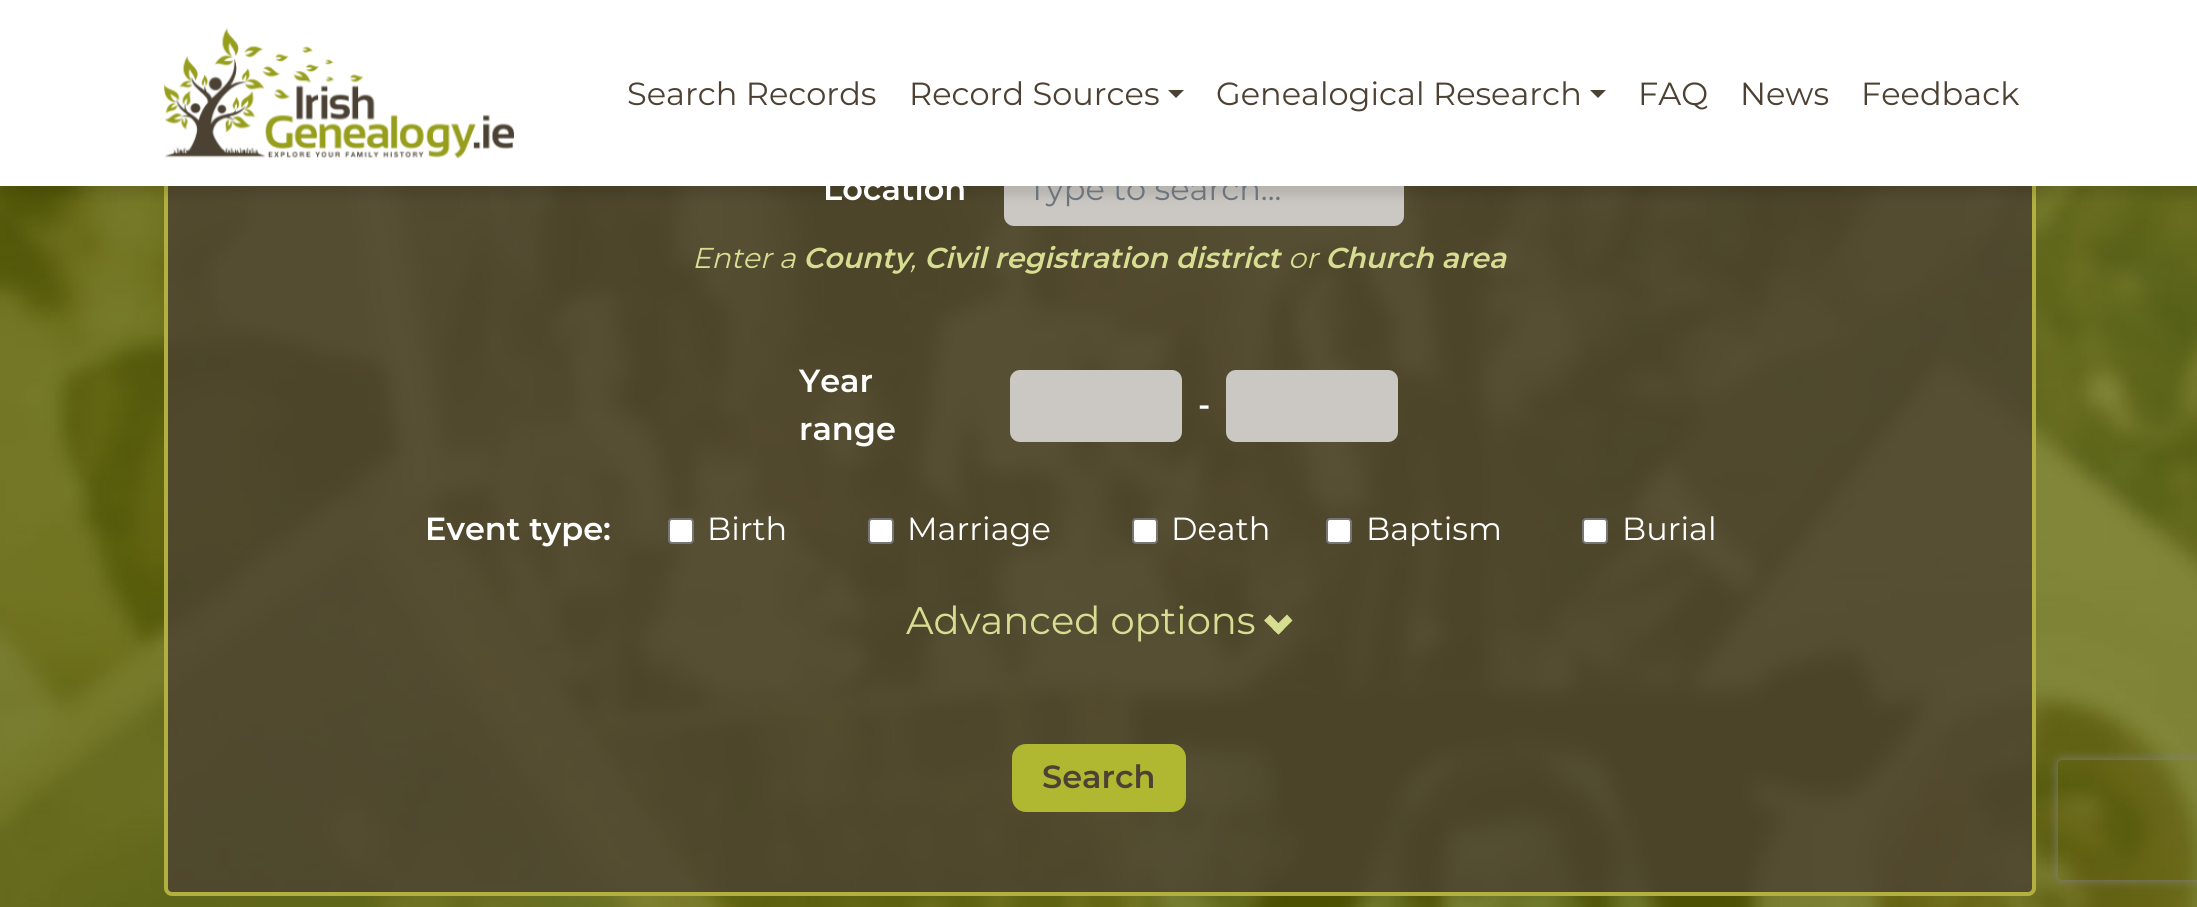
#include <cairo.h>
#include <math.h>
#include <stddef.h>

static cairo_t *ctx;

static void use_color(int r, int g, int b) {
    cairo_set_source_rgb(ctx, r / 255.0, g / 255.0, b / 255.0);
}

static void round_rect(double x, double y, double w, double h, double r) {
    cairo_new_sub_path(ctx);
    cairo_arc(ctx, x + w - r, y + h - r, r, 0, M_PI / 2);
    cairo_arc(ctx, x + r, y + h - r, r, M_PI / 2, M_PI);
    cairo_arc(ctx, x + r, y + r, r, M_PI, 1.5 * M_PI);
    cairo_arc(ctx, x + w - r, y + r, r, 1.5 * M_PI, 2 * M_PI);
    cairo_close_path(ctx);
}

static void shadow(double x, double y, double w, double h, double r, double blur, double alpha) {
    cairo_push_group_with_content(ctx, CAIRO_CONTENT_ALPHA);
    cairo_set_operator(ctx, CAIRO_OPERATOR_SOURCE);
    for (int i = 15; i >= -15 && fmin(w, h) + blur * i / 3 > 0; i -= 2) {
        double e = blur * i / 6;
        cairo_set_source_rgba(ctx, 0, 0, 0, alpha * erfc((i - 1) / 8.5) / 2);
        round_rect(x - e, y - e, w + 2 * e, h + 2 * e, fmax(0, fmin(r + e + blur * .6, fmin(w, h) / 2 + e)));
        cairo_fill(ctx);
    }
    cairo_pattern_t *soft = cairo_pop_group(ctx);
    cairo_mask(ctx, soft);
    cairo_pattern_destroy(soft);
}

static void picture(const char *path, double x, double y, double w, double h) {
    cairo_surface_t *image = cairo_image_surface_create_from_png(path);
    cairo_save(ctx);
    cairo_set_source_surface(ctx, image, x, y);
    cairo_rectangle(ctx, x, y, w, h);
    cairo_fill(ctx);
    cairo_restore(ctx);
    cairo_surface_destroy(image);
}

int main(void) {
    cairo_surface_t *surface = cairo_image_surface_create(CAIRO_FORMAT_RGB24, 2197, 907);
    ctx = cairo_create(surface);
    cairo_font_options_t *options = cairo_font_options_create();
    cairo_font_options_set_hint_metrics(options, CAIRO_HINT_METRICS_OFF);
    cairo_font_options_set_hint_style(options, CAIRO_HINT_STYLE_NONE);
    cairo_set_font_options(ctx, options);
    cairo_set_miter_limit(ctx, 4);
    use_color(255, 255, 255);
    cairo_paint(ctx);
    picture("img2.png", 0, 186, 2197, 721);
    cairo_set_source_rgba(ctx, 0.294, 0.255, 0.2, 0.79);
    round_rect(166, -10, 1868, 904, 6);
    cairo_fill_preserve(ctx);
    use_color(178, 177, 63);
    cairo_set_line_width(ctx, 4);
    cairo_stroke(ctx);
    use_color(203, 199, 194);
    round_rect(1004, 154, 400, 72, 10);
    cairo_fill(ctx);
    use_color(0, 0, 0);
    shadow(0, 10, 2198, 186, 0, 5, 0.1);
    cairo_select_font_face(ctx, "Montserrat", CAIRO_FONT_SLANT_NORMAL, CAIRO_FONT_WEIGHT_NORMAL);
    cairo_set_font_size(ctx, 32);
    use_color(108, 117, 125);
    cairo_move_to(ctx, 1028, 200);
    cairo_show_text(ctx, "Type to search...");
    use_color(255, 255, 255);
    cairo_rectangle(ctx, 0, 0, 2197, 186);
    cairo_fill(ctx);
    picture("img1.png", 163, 28, 351, 131);
    use_color(76, 65, 51);
    cairo_move_to(ctx, 627, 105);
    cairo_show_text(ctx, "Search Records");
    cairo_move_to(ctx, 909, 105);
    cairo_show_text(ctx, "Record Sources");
    use_color(75, 66, 51);
    cairo_new_path(ctx);
    cairo_move_to(ctx, 1168, 90);
    cairo_line_to(ctx, 1184, 90);
    cairo_line_to(ctx, 1176, 98);
    cairo_close_path(ctx);
    cairo_fill(ctx);
    use_color(76, 65, 51);
    cairo_move_to(ctx, 1216, 105);
    cairo_show_text(ctx, "Genealogical Research");
    use_color(75, 66, 51);
    cairo_new_path(ctx);
    cairo_move_to(ctx, 1590, 90);
    cairo_line_to(ctx, 1606, 90);
    cairo_line_to(ctx, 1598, 98);
    cairo_close_path(ctx);
    cairo_fill(ctx);
    use_color(76, 65, 51);
    cairo_move_to(ctx, 1638, 105);
    cairo_show_text(ctx, "FAQ");
    cairo_move_to(ctx, 1740, 105);
    cairo_show_text(ctx, "News");
    cairo_move_to(ctx, 1861, 105);
    cairo_show_text(ctx, "Feedback");
    cairo_select_font_face(ctx, "Montserrat SemiBold", CAIRO_FONT_SLANT_NORMAL, CAIRO_FONT_WEIGHT_NORMAL);
    use_color(255, 255, 255);
    cairo_move_to(ctx, 823, 200);
    cairo_show_text(ctx, "Location");
    cairo_select_font_face(ctx, "Montserrat", CAIRO_FONT_SLANT_ITALIC, CAIRO_FONT_WEIGHT_NORMAL);
    cairo_set_font_size(ctx, 28.75);
    use_color(216, 222, 145);
    cairo_move_to(ctx, 692, 268);
    cairo_show_text(ctx, "Enter a");
    cairo_select_font_face(ctx, "Montserrat SemiBold", CAIRO_FONT_SLANT_ITALIC, CAIRO_FONT_WEIGHT_NORMAL);
    cairo_move_to(ctx, 803, 268);
    cairo_show_text(ctx, "County");
    cairo_move_to(ctx, 924, 268);
    cairo_show_text(ctx, "Civil registration district");
    cairo_select_font_face(ctx, "Montserrat", CAIRO_FONT_SLANT_ITALIC, CAIRO_FONT_WEIGHT_NORMAL);
    cairo_move_to(ctx, 1288, 268);
    cairo_show_text(ctx, "or");
    cairo_select_font_face(ctx, "Montserrat SemiBold", CAIRO_FONT_SLANT_ITALIC, CAIRO_FONT_WEIGHT_NORMAL);
    cairo_move_to(ctx, 1325, 268);
    cairo_show_text(ctx, "Church area");
    cairo_select_font_face(ctx, "Montserrat", CAIRO_FONT_SLANT_ITALIC, CAIRO_FONT_WEIGHT_NORMAL);
    cairo_move_to(ctx, 910, 268);
    cairo_show_text(ctx, ",");
    cairo_select_font_face(ctx, "Montserrat SemiBold", CAIRO_FONT_SLANT_NORMAL, CAIRO_FONT_WEIGHT_NORMAL);
    cairo_set_font_size(ctx, 32);
    use_color(255, 255, 255);
    cairo_move_to(ctx, 799, 392);
    cairo_show_text(ctx, "Year");
    cairo_move_to(ctx, 799, 440);
    cairo_show_text(ctx, "range");
    use_color(203, 199, 194);
    round_rect(1010, 370, 172, 72, 10);
    cairo_fill(ctx);
    use_color(255, 255, 255);
    cairo_move_to(ctx, 1198, 416);
    cairo_show_text(ctx, "-");
    use_color(203, 199, 194);
    round_rect(1226, 370, 172, 72, 10);
    cairo_fill(ctx);
    use_color(255, 255, 255);
    cairo_move_to(ctx, 425, 540);
    cairo_show_text(ctx, "Event type:");
    round_rect(669, 519, 24, 24, 3);
    cairo_fill_preserve(ctx);
    use_color(118, 118, 118);
    cairo_set_line_width(ctx, 2);
    cairo_stroke(ctx);
    cairo_select_font_face(ctx, "Montserrat", CAIRO_FONT_SLANT_NORMAL, CAIRO_FONT_WEIGHT_NORMAL);
    use_color(255, 255, 255);
    cairo_move_to(ctx, 707, 540);
    cairo_show_text(ctx, "Birth");
    round_rect(869, 519, 24, 24, 3);
    cairo_fill_preserve(ctx);
    use_color(118, 118, 118);
    cairo_stroke(ctx);
    use_color(255, 255, 255);
    cairo_move_to(ctx, 907, 540);
    cairo_show_text(ctx, "Marriage");
    round_rect(1133, 519, 24, 24, 3);
    cairo_fill_preserve(ctx);
    use_color(118, 118, 118);
    cairo_stroke(ctx);
    use_color(255, 255, 255);
    cairo_move_to(ctx, 1171, 540);
    cairo_show_text(ctx, "Death");
    round_rect(1327, 519, 24, 24, 3);
    cairo_fill_preserve(ctx);
    use_color(118, 118, 118);
    cairo_stroke(ctx);
    use_color(255, 255, 255);
    cairo_move_to(ctx, 1366, 540);
    cairo_show_text(ctx, "Baptism");
    round_rect(1583, 519, 24, 24, 3);
    cairo_fill_preserve(ctx);
    use_color(118, 118, 118);
    cairo_stroke(ctx);
    use_color(255, 255, 255);
    cairo_move_to(ctx, 1622, 540);
    cairo_show_text(ctx, "Burial");
    cairo_set_font_size(ctx, 38.5);
    use_color(216, 222, 145);
    cairo_move_to(ctx, 906, 634);
    cairo_show_text(ctx, "Advanced options");
    cairo_new_path(ctx);
    cairo_move_to(ctx, 1287, 614.5);
    cairo_line_to(ctx, 1292.5, 620.5);
    cairo_line_to(ctx, 1278.5, 634.5);
    cairo_line_to(ctx, 1272.5, 629);
    cairo_close_path(ctx);
    cairo_fill(ctx);
    cairo_new_path(ctx);
    cairo_move_to(ctx, 1270, 614.5);
    cairo_line_to(ctx, 1284, 629);
    cairo_line_to(ctx, 1278.5, 634.5);
    cairo_line_to(ctx, 1264, 620.5);
    cairo_close_path(ctx);
    cairo_fill(ctx);
    use_color(176, 184, 50);
    round_rect(1012, 744, 174, 68, 14);
    cairo_fill(ctx);
    cairo_select_font_face(ctx, "Montserrat SemiBold", CAIRO_FONT_SLANT_NORMAL, CAIRO_FONT_WEIGHT_NORMAL);
    cairo_set_font_size(ctx, 32);
    use_color(76, 65, 51);
    cairo_move_to(ctx, 1042, 788);
    cairo_show_text(ctx, "Search");
    cairo_save(ctx);
    cairo_set_fill_rule(ctx, CAIRO_FILL_RULE_EVEN_ODD);
    cairo_new_path(ctx);
    cairo_move_to(ctx, 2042, 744);
    cairo_line_to(ctx, 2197, 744);
    cairo_line_to(ctx, 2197, 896);
    cairo_line_to(ctx, 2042, 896);
    cairo_close_path(ctx);
    cairo_move_to(ctx, 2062, 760);
    cairo_line_to(ctx, 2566, 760);
    cairo_curve_to(ctx, 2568, 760, 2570, 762, 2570, 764);
    cairo_line_to(ctx, 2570, 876);
    cairo_curve_to(ctx, 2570, 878, 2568, 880, 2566, 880);
    cairo_line_to(ctx, 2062, 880);
    cairo_curve_to(ctx, 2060, 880, 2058, 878, 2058, 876);
    cairo_line_to(ctx, 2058, 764);
    cairo_curve_to(ctx, 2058, 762, 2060, 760, 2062, 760);
    cairo_close_path(ctx);
    cairo_clip(ctx);
    use_color(128, 128, 128);
    shadow(2058, 760, 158, 120, 4, 5, 1);
    cairo_restore(ctx);
    cairo_surface_write_to_png(surface, "result.png");
    cairo_font_options_destroy(options);
    cairo_destroy(ctx);
    cairo_surface_destroy(surface);
    return 0;
}
